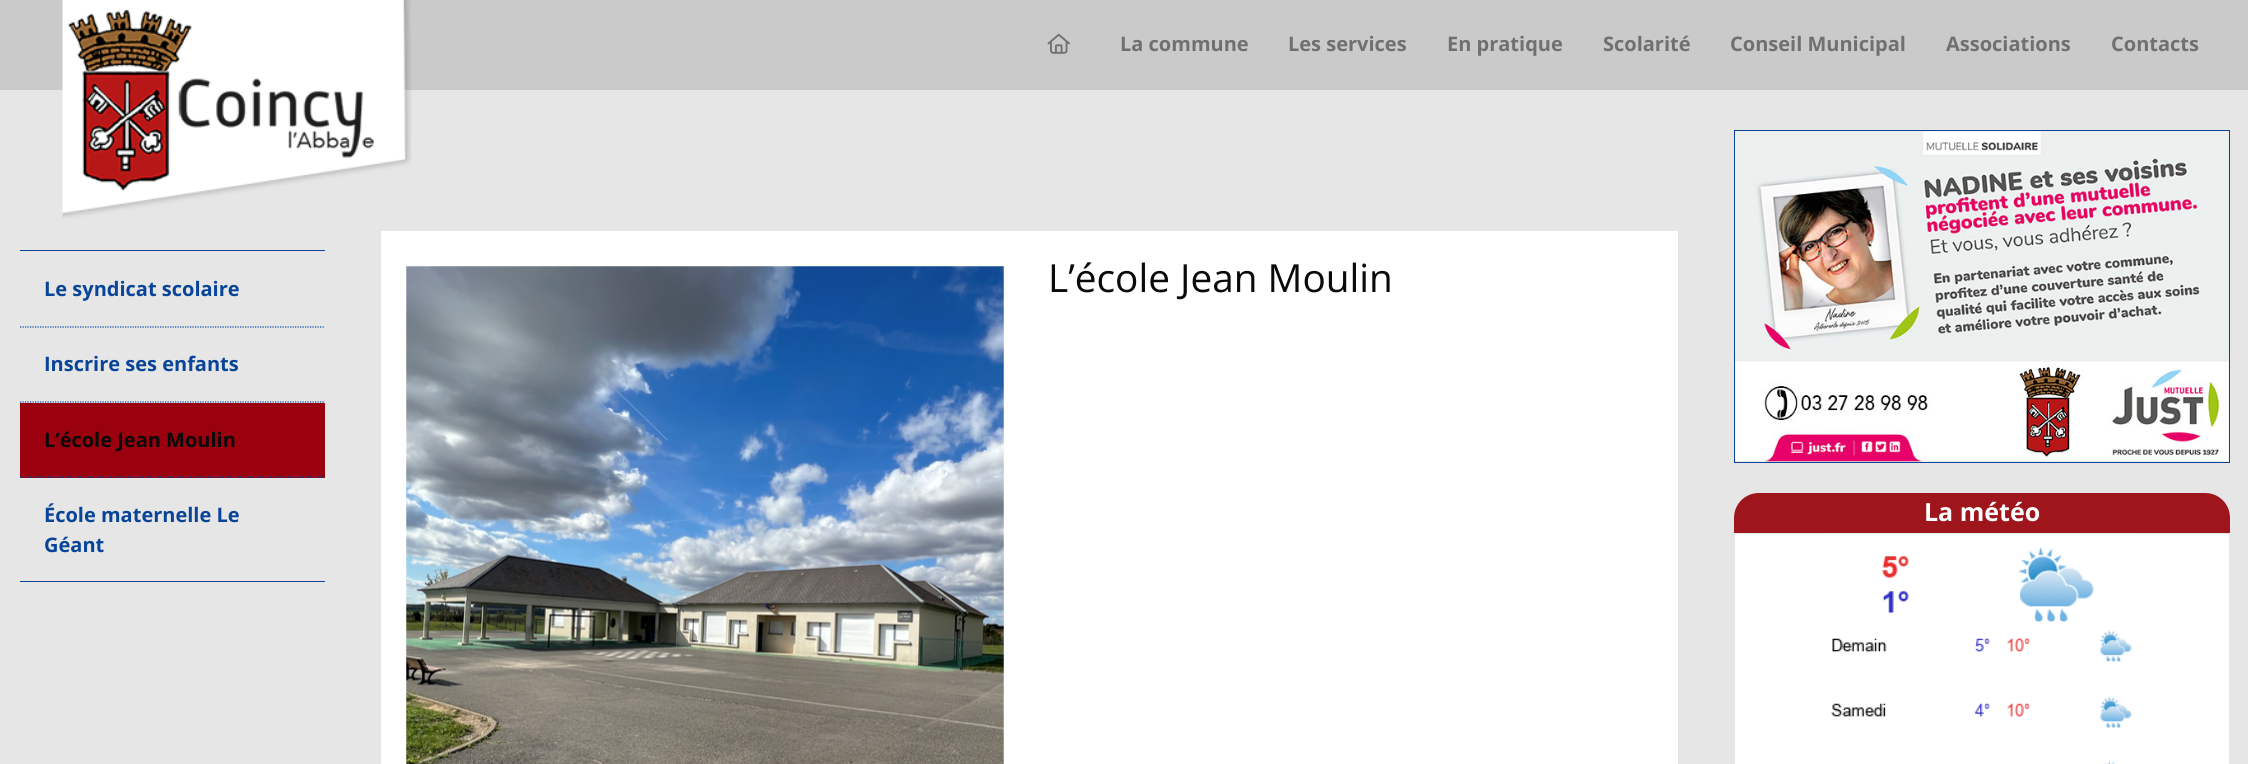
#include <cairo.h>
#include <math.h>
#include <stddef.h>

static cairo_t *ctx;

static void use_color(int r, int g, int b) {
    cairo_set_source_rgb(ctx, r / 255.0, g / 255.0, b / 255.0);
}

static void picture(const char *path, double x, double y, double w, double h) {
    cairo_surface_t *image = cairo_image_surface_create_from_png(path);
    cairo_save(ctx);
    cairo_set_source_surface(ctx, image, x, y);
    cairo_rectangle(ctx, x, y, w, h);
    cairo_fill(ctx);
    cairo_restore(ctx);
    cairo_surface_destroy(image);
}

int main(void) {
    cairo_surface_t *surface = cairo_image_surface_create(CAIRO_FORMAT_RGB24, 2248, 764);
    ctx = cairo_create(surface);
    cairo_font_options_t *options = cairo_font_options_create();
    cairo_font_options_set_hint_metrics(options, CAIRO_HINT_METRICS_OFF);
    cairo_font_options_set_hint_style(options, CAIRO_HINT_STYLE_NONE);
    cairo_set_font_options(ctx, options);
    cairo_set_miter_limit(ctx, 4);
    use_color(230, 230, 230);
    cairo_paint(ctx);
    use_color(202, 202, 202);
    cairo_rectangle(ctx, 0, 0, 2248, 90);
    cairo_fill(ctx);
    picture("img1.png", 62, 0, 350, 219);
    picture("img2.png", 1047, 33, 23, 21);
    cairo_select_font_face(ctx, "Open Sans", CAIRO_FONT_SLANT_NORMAL, CAIRO_FONT_WEIGHT_BOLD);
    cairo_set_font_size(ctx, 20);
    use_color(112, 112, 112);
    cairo_move_to(ctx, 1120, 51);
    cairo_show_text(ctx, "La commune");
    cairo_move_to(ctx, 1288, 51);
    cairo_show_text(ctx, "Les services");
    cairo_move_to(ctx, 1447, 51);
    cairo_show_text(ctx, "En pratique");
    cairo_move_to(ctx, 1603, 51);
    cairo_show_text(ctx, "Scolarité");
    cairo_move_to(ctx, 1730, 51);
    cairo_show_text(ctx, "Conseil Municipal");
    cairo_move_to(ctx, 1946, 51);
    cairo_show_text(ctx, "Associations");
    cairo_move_to(ctx, 2111, 51);
    cairo_show_text(ctx, "Contacts");
    use_color(8, 69, 153);
    cairo_rectangle(ctx, 20, 250, 305, 1);
    cairo_fill(ctx);
    cairo_new_path(ctx);
    cairo_move_to(ctx, 20, 327);
    cairo_line_to(ctx, 325, 327);
    cairo_set_line_width(ctx, 1.2);
    cairo_set_dash(ctx, (double[]){1.25, 1.25}, 2, 0);
    cairo_stroke(ctx);
    cairo_move_to(ctx, 44, 296);
    cairo_show_text(ctx, "Le syndicat scolaire");
    cairo_new_path(ctx);
    cairo_move_to(ctx, 20, 402);
    cairo_line_to(ctx, 325, 402);
    cairo_stroke(ctx);
    cairo_move_to(ctx, 44, 371);
    cairo_show_text(ctx, "Inscrire ses enfants");
    use_color(154, 0, 13);
    cairo_rectangle(ctx, 20, 403, 305, 75);
    cairo_fill(ctx);
    cairo_new_path(ctx);
    cairo_move_to(ctx, 20, 477);
    cairo_line_to(ctx, 325, 477);
    use_color(8, 69, 153);
    cairo_stroke(ctx);
    use_color(10, 10, 10);
    cairo_move_to(ctx, 44, 447);
    cairo_show_text(ctx, "L’école Jean Moulin");
    use_color(8, 69, 153);
    cairo_rectangle(ctx, 20, 581, 305, 1);
    cairo_fill(ctx);
    cairo_move_to(ctx, 44, 522);
    cairo_show_text(ctx, "École maternelle Le");
    cairo_move_to(ctx, 44, 552);
    cairo_show_text(ctx, "Géant");
    use_color(255, 255, 255);
    cairo_rectangle(ctx, 381, 231, 1297, 533);
    cairo_fill(ctx);
    picture("img3.png", 406, 266, 598, 498);
    cairo_select_font_face(ctx, "Open Sans", CAIRO_FONT_SLANT_NORMAL, CAIRO_FONT_WEIGHT_NORMAL);
    cairo_set_font_size(ctx, 38.75);
    use_color(10, 10, 10);
    cairo_move_to(ctx, 1048, 292);
    cairo_show_text(ctx, "L’école Jean Moulin");
    cairo_rectangle(ctx, 1734.5, 130.5, 495, 332);
    use_color(8, 69, 153);
    cairo_set_line_width(ctx, 1);
    cairo_set_dash(ctx, NULL, 0, 0);
    cairo_stroke(ctx);
    picture("img4.png", 1735, 131, 494, 331);
    use_color(158, 21, 28);
    cairo_new_path(ctx);
    cairo_move_to(ctx, 1759, 493);
    cairo_line_to(ctx, 2205, 493);
    cairo_curve_to(ctx, 2219, 493, 2230, 504, 2230, 518);
    cairo_line_to(ctx, 2230, 533);
    cairo_line_to(ctx, 1734, 533);
    cairo_line_to(ctx, 1734, 518);
    cairo_curve_to(ctx, 1734, 504, 1745, 493, 1759, 493);
    cairo_close_path(ctx);
    cairo_fill(ctx);
    cairo_select_font_face(ctx, "Open Sans", CAIRO_FONT_SLANT_NORMAL, CAIRO_FONT_WEIGHT_BOLD);
    cairo_set_font_size(ctx, 25);
    use_color(254, 254, 254);
    cairo_move_to(ctx, 1924, 521);
    cairo_show_text(ctx, "La météo");
    use_color(255, 255, 255);
    cairo_rectangle(ctx, 1735, 534, 494, 230);
    cairo_fill(ctx);
    picture("img5.png", 1825, 533, 312, 231);
    cairo_surface_write_to_png(surface, "result.png");
    cairo_font_options_destroy(options);
    cairo_destroy(ctx);
    cairo_surface_destroy(surface);
    return 0;
}
